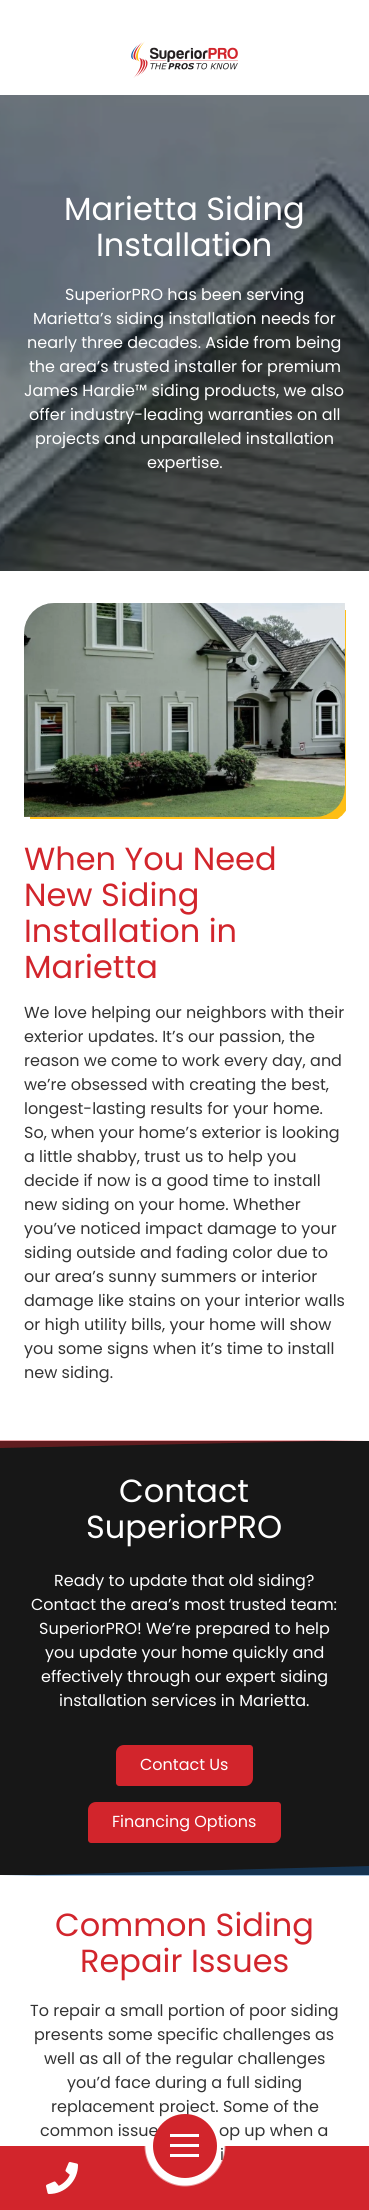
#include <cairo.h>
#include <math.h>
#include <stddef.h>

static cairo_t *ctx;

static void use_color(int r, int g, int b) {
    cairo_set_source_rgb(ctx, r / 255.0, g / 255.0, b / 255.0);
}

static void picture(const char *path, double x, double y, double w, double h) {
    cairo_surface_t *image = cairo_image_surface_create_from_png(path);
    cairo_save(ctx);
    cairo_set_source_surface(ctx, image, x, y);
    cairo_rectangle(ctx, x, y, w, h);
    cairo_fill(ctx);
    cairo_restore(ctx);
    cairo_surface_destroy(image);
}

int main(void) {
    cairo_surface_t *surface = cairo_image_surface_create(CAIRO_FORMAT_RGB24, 369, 2210);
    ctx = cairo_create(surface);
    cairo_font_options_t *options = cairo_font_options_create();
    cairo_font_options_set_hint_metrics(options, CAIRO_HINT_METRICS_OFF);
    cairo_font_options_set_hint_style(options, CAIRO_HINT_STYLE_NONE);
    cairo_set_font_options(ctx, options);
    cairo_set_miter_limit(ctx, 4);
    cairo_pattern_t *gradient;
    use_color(255, 255, 255);
    cairo_paint(ctx);
    picture("img1.png", 131, 41, 107, 37);
    picture("img2.png", 0, 95, 369, 476);
    cairo_select_font_face(ctx, "Poppins", CAIRO_FONT_SLANT_NORMAL, CAIRO_FONT_WEIGHT_NORMAL);
    cairo_set_font_size(ctx, 32);
    use_color(255, 255, 255);
    cairo_move_to(ctx, 64, 220);
    cairo_show_text(ctx, "Marietta Siding");
    cairo_move_to(ctx, 96, 256);
    cairo_show_text(ctx, "Installation");
    cairo_set_font_size(ctx, 16);
    cairo_move_to(ctx, 65, 300);
    cairo_show_text(ctx, "SuperiorPRO has been serving");
    cairo_move_to(ctx, 33, 324);
    cairo_show_text(ctx, "Marietta’s siding installation needs for");
    cairo_move_to(ctx, 27, 348);
    cairo_show_text(ctx, "nearly three decades. Aside from being");
    cairo_move_to(ctx, 29, 372);
    cairo_show_text(ctx, "the area’s trusted installer for premium");
    cairo_move_to(ctx, 24, 396);
    cairo_show_text(ctx, "James Hardie™ siding products, we also");
    cairo_move_to(ctx, 29, 420);
    cairo_show_text(ctx, "offer industry-leading warranties on all");
    cairo_move_to(ctx, 35, 444);
    cairo_show_text(ctx, "projects and unparalleled installation");
    cairo_move_to(ctx, 147, 468);
    cairo_show_text(ctx, "expertise.");
    picture("img3.png", 24, 603, 322, 216);
    cairo_set_font_size(ctx, 32);
    use_color(210, 37, 44);
    cairo_move_to(ctx, 24, 870);
    cairo_show_text(ctx, "When You Need");
    cairo_move_to(ctx, 24, 906);
    cairo_show_text(ctx, "New Siding");
    cairo_move_to(ctx, 24, 942);
    cairo_show_text(ctx, "Installation in");
    cairo_move_to(ctx, 24, 978);
    cairo_show_text(ctx, "Marietta");
    cairo_set_font_size(ctx, 16);
    use_color(51, 51, 51);
    cairo_move_to(ctx, 24, 1018);
    cairo_show_text(ctx, "We love helping our neighbors with their");
    cairo_move_to(ctx, 24, 1042);
    cairo_show_text(ctx, "exterior updates. It’s our passion, the");
    cairo_move_to(ctx, 24, 1066);
    cairo_show_text(ctx, "reason we come to work every day, and");
    cairo_move_to(ctx, 24, 1090);
    cairo_show_text(ctx, "we’re obsessed with creating the best,");
    cairo_move_to(ctx, 24, 1114);
    cairo_show_text(ctx, "longest-lasting results for your home.");
    cairo_move_to(ctx, 24, 1138);
    cairo_show_text(ctx, "So, when your home’s exterior is looking");
    cairo_move_to(ctx, 24, 1162);
    cairo_show_text(ctx, "a little shabby, trust us to help you");
    cairo_move_to(ctx, 24, 1186);
    cairo_show_text(ctx, "decide if now is a good time to install");
    cairo_move_to(ctx, 24, 1210);
    cairo_show_text(ctx, "new siding on your home. Whether");
    cairo_move_to(ctx, 24, 1234);
    cairo_show_text(ctx, "you’ve noticed impact damage to your");
    cairo_move_to(ctx, 24, 1258);
    cairo_show_text(ctx, "siding outside and fading color due to");
    cairo_move_to(ctx, 24, 1282);
    cairo_show_text(ctx, "our area’s sunny summers or interior");
    cairo_move_to(ctx, 24, 1306);
    cairo_show_text(ctx, "damage like stains on your interior walls");
    cairo_move_to(ctx, 24, 1330);
    cairo_show_text(ctx, "or high utility bills, your home will show");
    cairo_move_to(ctx, 24, 1354);
    cairo_show_text(ctx, "you some signs when it’s time to install");
    cairo_move_to(ctx, 24, 1378);
    cairo_show_text(ctx, "new siding.");
    use_color(23, 23, 23);
    cairo_rectangle(ctx, 0, 1441, 369, 434);
    cairo_fill(ctx);
    cairo_set_source_rgba(ctx, 0.824, 0.145, 0.173, 0.39);
    cairo_new_path(ctx);
    cairo_move_to(ctx, 0, 1440);
    cairo_line_to(ctx, 0, 1448);
    cairo_line_to(ctx, 369, 1440);
    cairo_close_path(ctx);
    cairo_fill(ctx);
    cairo_set_font_size(ctx, 32);
    use_color(255, 255, 255);
    cairo_move_to(ctx, 119, 1502);
    cairo_show_text(ctx, "Contact");
    cairo_move_to(ctx, 86, 1538);
    cairo_show_text(ctx, "SuperiorPRO");
    cairo_set_font_size(ctx, 16);
    cairo_move_to(ctx, 54, 1586);
    cairo_show_text(ctx, "Ready to update that old siding?");
    cairo_move_to(ctx, 31, 1610);
    cairo_show_text(ctx, "Contact the area’s most trusted team:");
    cairo_move_to(ctx, 39, 1634);
    cairo_show_text(ctx, "SuperiorPRO! We’re prepared to help");
    cairo_move_to(ctx, 45, 1658);
    cairo_show_text(ctx, "you update your home quickly and");
    cairo_move_to(ctx, 41, 1682);
    cairo_show_text(ctx, "effectively through our expert siding");
    cairo_move_to(ctx, 59, 1706);
    cairo_show_text(ctx, "installation services in Marietta.");
    use_color(210, 37, 44);
    cairo_new_path(ctx);
    cairo_move_to(ctx, 124, 1745);
    cairo_line_to(ctx, 250, 1745);
    cairo_curve_to(ctx, 251.5, 1745, 253, 1746.5, 253, 1748);
    cairo_line_to(ctx, 253, 1778);
    cairo_curve_to(ctx, 253, 1782.5, 249.5, 1786, 245, 1786);
    cairo_line_to(ctx, 119, 1786);
    cairo_curve_to(ctx, 117.5, 1786, 116, 1784.5, 116, 1783);
    cairo_line_to(ctx, 116, 1753);
    cairo_curve_to(ctx, 116, 1748.5, 119.5, 1745, 124, 1745);
    cairo_close_path(ctx);
    cairo_fill(ctx);
    use_color(255, 255, 255);
    cairo_move_to(ctx, 140, 1770);
    cairo_show_text(ctx, "Contact Us");
    use_color(210, 37, 44);
    cairo_new_path(ctx);
    cairo_move_to(ctx, 96, 1802);
    cairo_line_to(ctx, 278, 1802);
    cairo_curve_to(ctx, 279.5, 1802, 281, 1803.5, 281, 1805);
    cairo_line_to(ctx, 281, 1835);
    cairo_curve_to(ctx, 281, 1839.5, 277.5, 1843, 273, 1843);
    cairo_line_to(ctx, 91, 1843);
    cairo_curve_to(ctx, 89.5, 1843, 88, 1841.5, 88, 1840);
    cairo_line_to(ctx, 88, 1810);
    cairo_curve_to(ctx, 88, 1805.5, 91.5, 1802, 96, 1802);
    cairo_close_path(ctx);
    cairo_fill(ctx);
    use_color(255, 255, 255);
    cairo_move_to(ctx, 112, 1827);
    cairo_show_text(ctx, "Financing Options");
    cairo_set_source_rgba(ctx, 0.09, 0.388, 0.675, 0.39);
    cairo_new_path(ctx);
    cairo_move_to(ctx, 0, 1876);
    cairo_line_to(ctx, 369, 1876);
    cairo_line_to(ctx, 369, 1866);
    cairo_close_path(ctx);
    cairo_fill(ctx);
    cairo_set_font_size(ctx, 32);
    use_color(210, 37, 44);
    cairo_move_to(ctx, 55, 1936);
    cairo_show_text(ctx, "Common Siding");
    cairo_move_to(ctx, 80, 1972);
    cairo_show_text(ctx, "Repair Issues");
    cairo_set_font_size(ctx, 16);
    use_color(51, 51, 51);
    cairo_move_to(ctx, 30, 2016);
    cairo_show_text(ctx, "To repair a small portion of poor siding");
    cairo_move_to(ctx, 34, 2040);
    cairo_show_text(ctx, "presents some specific challenges as");
    cairo_move_to(ctx, 44, 2064);
    cairo_show_text(ctx, "well as all of the regular challenges");
    cairo_move_to(ctx, 67, 2088);
    cairo_show_text(ctx, "you’d face during a full siding");
    cairo_move_to(ctx, 51, 2112);
    cairo_show_text(ctx, "replacement project. Some of the");
    cairo_move_to(ctx, 40, 2136);
    cairo_show_text(ctx, "common issue");
    cairo_move_to(ctx, 219, 2136);
    cairo_show_text(ctx, "op up when a");
    cairo_move_to(ctx, 220, 2160);
    cairo_show_text(ctx, "i");
    gradient = cairo_pattern_create_radial(185, 2146, 0, 185, 2146, 195);
    cairo_pattern_add_color_stop_rgba(gradient, 0.2, 0.824, 0.145, 0.173, 0);
    cairo_pattern_add_color_stop_rgba(gradient, 0.21, 0.824, 0.145, 0.173, 1);
    cairo_set_source(ctx, gradient);
    cairo_pattern_destroy(gradient);
    cairo_rectangle(ctx, 0, 2146, 369, 64);
    cairo_fill(ctx);
    picture("img4.png", 46, 2162, 32, 32);
    use_color(210, 37, 44);
    cairo_arc(ctx, 185, 2146, 32, 0, 2 * M_PI);
    cairo_fill(ctx);
    use_color(255, 255, 255);
    cairo_rectangle(ctx, 170, 2144, 29, 3);
    cairo_fill(ctx);
    cairo_rectangle(ctx, 170, 2134, 29, 3);
    cairo_fill(ctx);
    cairo_rectangle(ctx, 170, 2154, 29, 3);
    cairo_fill(ctx);
    cairo_surface_write_to_png(surface, "result.png");
    cairo_font_options_destroy(options);
    cairo_destroy(ctx);
    cairo_surface_destroy(surface);
    return 0;
}
